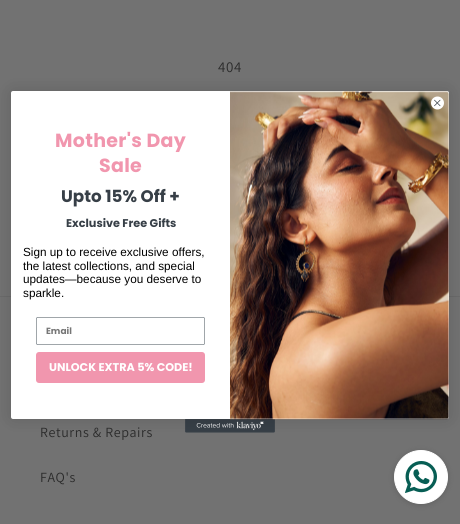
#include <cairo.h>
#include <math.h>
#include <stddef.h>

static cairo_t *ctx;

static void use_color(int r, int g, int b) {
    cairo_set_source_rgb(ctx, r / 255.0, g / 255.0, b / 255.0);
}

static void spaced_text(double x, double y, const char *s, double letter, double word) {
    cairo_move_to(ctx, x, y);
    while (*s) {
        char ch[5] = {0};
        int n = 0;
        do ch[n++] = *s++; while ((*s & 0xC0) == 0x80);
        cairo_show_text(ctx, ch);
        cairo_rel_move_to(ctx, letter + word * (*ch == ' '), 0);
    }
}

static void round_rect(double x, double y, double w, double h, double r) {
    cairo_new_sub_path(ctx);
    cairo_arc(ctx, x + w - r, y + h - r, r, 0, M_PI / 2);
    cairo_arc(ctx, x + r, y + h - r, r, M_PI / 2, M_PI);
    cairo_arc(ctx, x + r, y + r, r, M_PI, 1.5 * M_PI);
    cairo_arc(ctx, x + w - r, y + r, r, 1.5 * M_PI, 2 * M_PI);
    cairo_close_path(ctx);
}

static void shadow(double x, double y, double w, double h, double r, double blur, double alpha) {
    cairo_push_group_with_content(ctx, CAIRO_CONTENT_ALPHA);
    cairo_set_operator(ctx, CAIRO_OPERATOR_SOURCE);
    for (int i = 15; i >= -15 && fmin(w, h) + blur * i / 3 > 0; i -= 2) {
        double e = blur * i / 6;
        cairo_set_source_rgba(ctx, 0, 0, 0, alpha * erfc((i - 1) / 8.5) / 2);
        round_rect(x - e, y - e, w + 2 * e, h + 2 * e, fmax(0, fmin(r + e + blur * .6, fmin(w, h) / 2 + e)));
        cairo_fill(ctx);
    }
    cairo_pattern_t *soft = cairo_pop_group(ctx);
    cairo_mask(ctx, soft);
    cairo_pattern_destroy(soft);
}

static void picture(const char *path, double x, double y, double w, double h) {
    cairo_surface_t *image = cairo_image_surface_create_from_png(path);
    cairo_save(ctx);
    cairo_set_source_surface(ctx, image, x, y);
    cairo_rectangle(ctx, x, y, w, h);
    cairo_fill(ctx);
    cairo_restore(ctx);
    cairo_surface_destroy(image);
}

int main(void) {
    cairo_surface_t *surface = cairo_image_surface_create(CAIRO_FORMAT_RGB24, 460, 524);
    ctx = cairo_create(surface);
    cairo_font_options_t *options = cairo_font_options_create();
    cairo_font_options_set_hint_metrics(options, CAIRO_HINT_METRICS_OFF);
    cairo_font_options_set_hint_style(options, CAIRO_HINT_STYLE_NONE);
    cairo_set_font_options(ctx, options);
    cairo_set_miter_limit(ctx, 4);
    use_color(114, 114, 114);
    cairo_paint(ctx);
    cairo_select_font_face(ctx, "Assistant", CAIRO_FONT_SLANT_NORMAL, CAIRO_FONT_WEIGHT_NORMAL);
    cairo_set_font_size(ctx, 15);
    use_color(43, 43, 43);
    spaced_text(218, 72, "404", 0.6, 0);
    picture("img3.png", 185, 419, 90, 14);
    use_color(106, 106, 106);
    cairo_rectangle(ctx, 0, 296, 460, 1);
    cairo_fill(ctx);
    use_color(0, 0, 0);
    shadow(11, 91, 438, 328, 2, 8.5, 0.15);
    use_color(255, 255, 255);
    round_rect(11, 91, 438, 328, 2);
    cairo_fill(ctx);
    picture("img2.png", 230, 91, 219, 329);
    picture("img1.png", 431, 96, 13, 14);
    cairo_select_font_face(ctx, "Poppins", CAIRO_FONT_SLANT_NORMAL, CAIRO_FONT_WEIGHT_BOLD);
    cairo_set_font_size(ctx, 19);
    use_color(241, 150, 174);
    spaced_text(55, 147, "Mother's Day", 0.3, 0);
    spaced_text(99, 172, "Sale", 0.3, 0);
    cairo_set_font_size(ctx, 16.75);
    use_color(55, 63, 71);
    cairo_move_to(ctx, 61, 202);
    cairo_show_text(ctx, "Upto 15% Off +");
    cairo_set_font_size(ctx, 11.25);
    cairo_move_to(ctx, 66, 227);
    cairo_show_text(ctx, "Exclusive Free Gifts");
    cairo_select_font_face(ctx, "Liberation Sans", CAIRO_FONT_SLANT_NORMAL, CAIRO_FONT_WEIGHT_NORMAL);
    cairo_set_font_size(ctx, 11.75);
    use_color(0, 0, 0);
    cairo_move_to(ctx, 23, 256);
    cairo_show_text(ctx, "Sign up to receive exclusive offers,");
    cairo_move_to(ctx, 23, 270);
    cairo_show_text(ctx, "the latest collections, and special");
    cairo_move_to(ctx, 23, 283);
    cairo_show_text(ctx, "updates—because you deserve to");
    cairo_move_to(ctx, 23, 297);
    cairo_show_text(ctx, "sparkle.");
    round_rect(36.3, 317.3, 168.4, 27.4, 1.7);
    use_color(96, 106, 114);
    cairo_set_line_width(ctx, 0.6);
    cairo_stroke(ctx);
    cairo_select_font_face(ctx, "Poppins", CAIRO_FONT_SLANT_NORMAL, CAIRO_FONT_WEIGHT_BOLD);
    cairo_set_font_size(ctx, 9);
    use_color(118, 118, 118);
    cairo_move_to(ctx, 46, 334);
    cairo_show_text(ctx, "Email");
    use_color(241, 150, 174);
    round_rect(36, 352, 169, 31, 3);
    cairo_fill(ctx);
    cairo_set_font_size(ctx, 11.25);
    use_color(255, 255, 255);
    cairo_move_to(ctx, 49, 371);
    cairo_show_text(ctx, "UNLOCK EXTRA 5% CODE!");
    cairo_select_font_face(ctx, "Assistant", CAIRO_FONT_SLANT_NORMAL, CAIRO_FONT_WEIGHT_NORMAL);
    cairo_set_font_size(ctx, 14);
    use_color(43, 43, 43);
    spaced_text(40, 437, "Returns & Repairs", 0.6, 0);
    spaced_text(40, 482, "FAQ's", 0.6, 0);
    use_color(27, 27, 27);
    shadow(394, 451, 54, 54, 27, 3, 0.2);
    use_color(255, 255, 255);
    cairo_arc(ctx, 421, 477, 26.5, 0, 2 * M_PI);
    cairo_fill_preserve(ctx);
    cairo_set_line_width(ctx, 1);
    cairo_stroke(ctx);
    picture("img4.png", 405, 461, 32, 32);
    cairo_surface_write_to_png(surface, "result.png");
    cairo_font_options_destroy(options);
    cairo_destroy(ctx);
    cairo_surface_destroy(surface);
    return 0;
}
